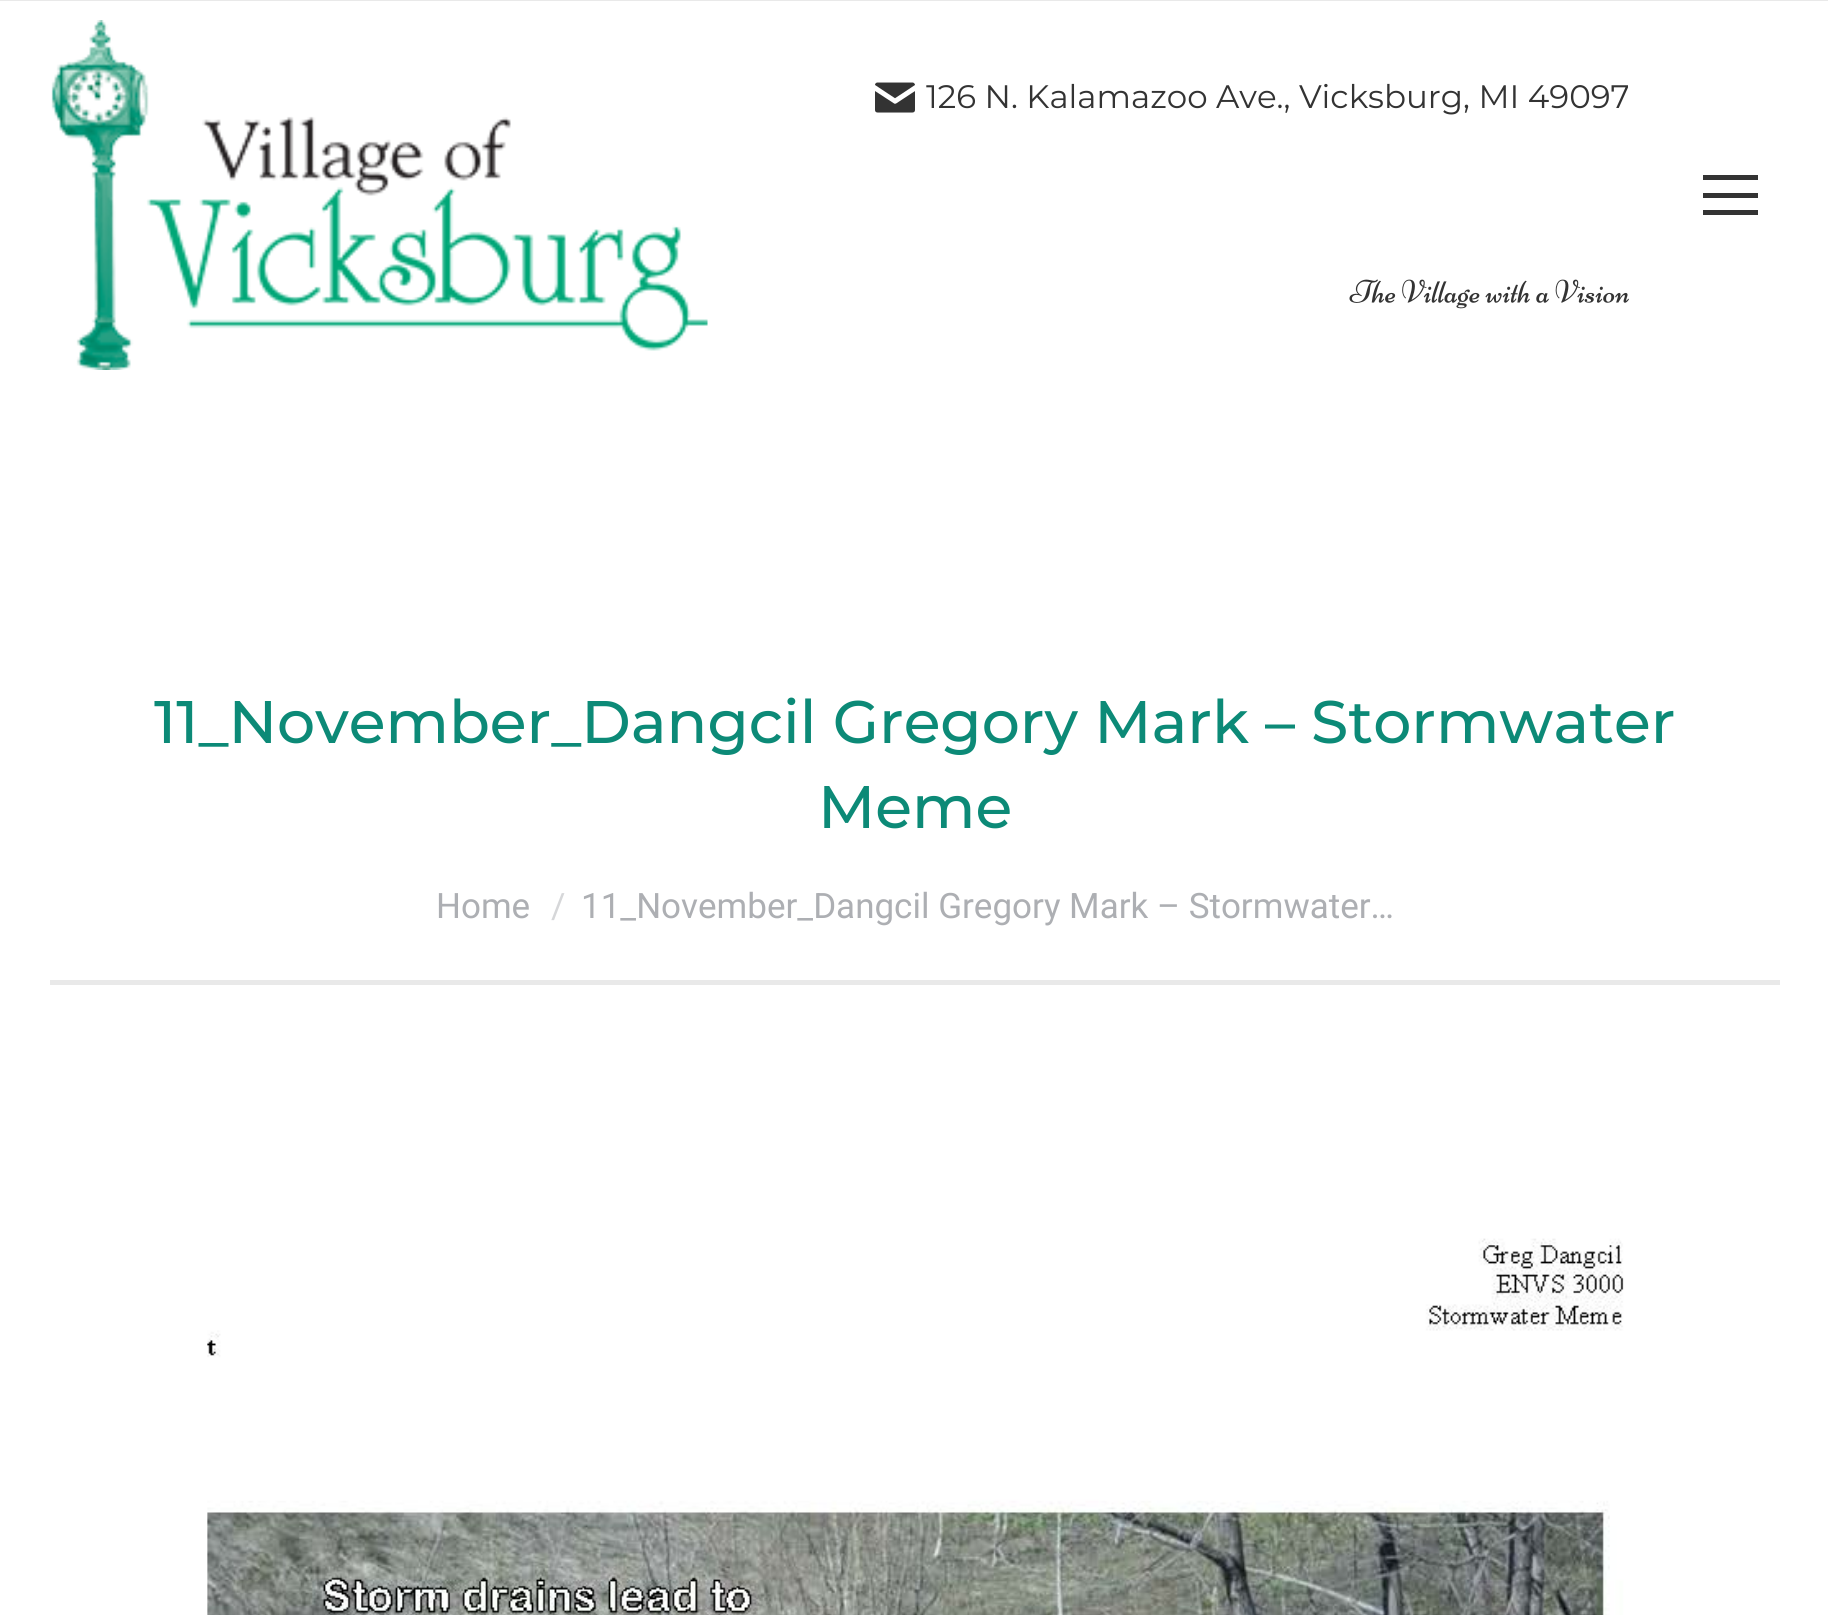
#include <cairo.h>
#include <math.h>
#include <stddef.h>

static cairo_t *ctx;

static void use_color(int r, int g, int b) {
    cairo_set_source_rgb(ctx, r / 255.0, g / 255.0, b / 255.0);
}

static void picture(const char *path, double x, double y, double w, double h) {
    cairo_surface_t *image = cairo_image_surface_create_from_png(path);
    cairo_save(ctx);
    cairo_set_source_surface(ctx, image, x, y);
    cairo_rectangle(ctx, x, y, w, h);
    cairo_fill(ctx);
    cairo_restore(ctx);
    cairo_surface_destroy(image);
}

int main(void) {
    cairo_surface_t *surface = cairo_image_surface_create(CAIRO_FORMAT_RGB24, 1828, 1615);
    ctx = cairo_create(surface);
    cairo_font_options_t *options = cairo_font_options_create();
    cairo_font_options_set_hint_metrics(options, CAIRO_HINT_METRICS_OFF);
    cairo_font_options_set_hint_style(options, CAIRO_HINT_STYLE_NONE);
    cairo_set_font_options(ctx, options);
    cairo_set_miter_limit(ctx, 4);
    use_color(255, 255, 255);
    cairo_paint(ctx);
    use_color(233, 233, 233);
    cairo_rectangle(ctx, 0, 0, 1828, 1);
    cairo_fill(ctx);
    picture("img1.png", 51, 20, 657, 350);
    picture("img2.png", 875, 82, 40, 31);
    cairo_select_font_face(ctx, "Montserrat", CAIRO_FONT_SLANT_NORMAL, CAIRO_FONT_WEIGHT_NORMAL);
    cairo_set_font_size(ctx, 32.5);
    use_color(51, 51, 51);
    cairo_move_to(ctx, 926, 108);
    cairo_show_text(ctx, "126 N. Kalamazoo Ave., Vicksburg, MI 49097");
    picture("img3.png", 1349, 279, 280, 30);
    cairo_rectangle(ctx, 1703, 175, 55, 5);
    cairo_fill(ctx);
    cairo_rectangle(ctx, 1703, 193, 55, 5);
    cairo_fill(ctx);
    cairo_rectangle(ctx, 1703, 210, 55, 5);
    cairo_fill(ctx);
    cairo_select_font_face(ctx, "Montserrat Medium", CAIRO_FONT_SLANT_NORMAL, CAIRO_FONT_WEIGHT_NORMAL);
    cairo_set_font_size(ctx, 60);
    use_color(12, 138, 119);
    cairo_move_to(ctx, 154, 743);
    cairo_show_text(ctx, "11_November_Dangcil Gregory Mark – Stormwater");
    cairo_move_to(ctx, 818, 828);
    cairo_show_text(ctx, "Meme");
    cairo_select_font_face(ctx, "Roboto", CAIRO_FONT_SLANT_NORMAL, CAIRO_FONT_WEIGHT_NORMAL);
    cairo_set_font_size(ctx, 35);
    use_color(173, 175, 179);
    cairo_move_to(ctx, 436, 918);
    cairo_show_text(ctx, "Home");
    use_color(214, 215, 217);
    cairo_move_to(ctx, 551, 918);
    cairo_show_text(ctx, "/");
    use_color(173, 175, 179);
    cairo_move_to(ctx, 581, 918);
    cairo_show_text(ctx, "11_November_Dangcil Gregory Mark – Stormwater…");
    use_color(233, 233, 233);
    cairo_rectangle(ctx, 50, 980, 1730, 5);
    cairo_fill(ctx);
    picture("img4.png", 207, 1238, 1417, 377);
    cairo_surface_write_to_png(surface, "result.png");
    cairo_font_options_destroy(options);
    cairo_destroy(ctx);
    cairo_surface_destroy(surface);
    return 0;
}
